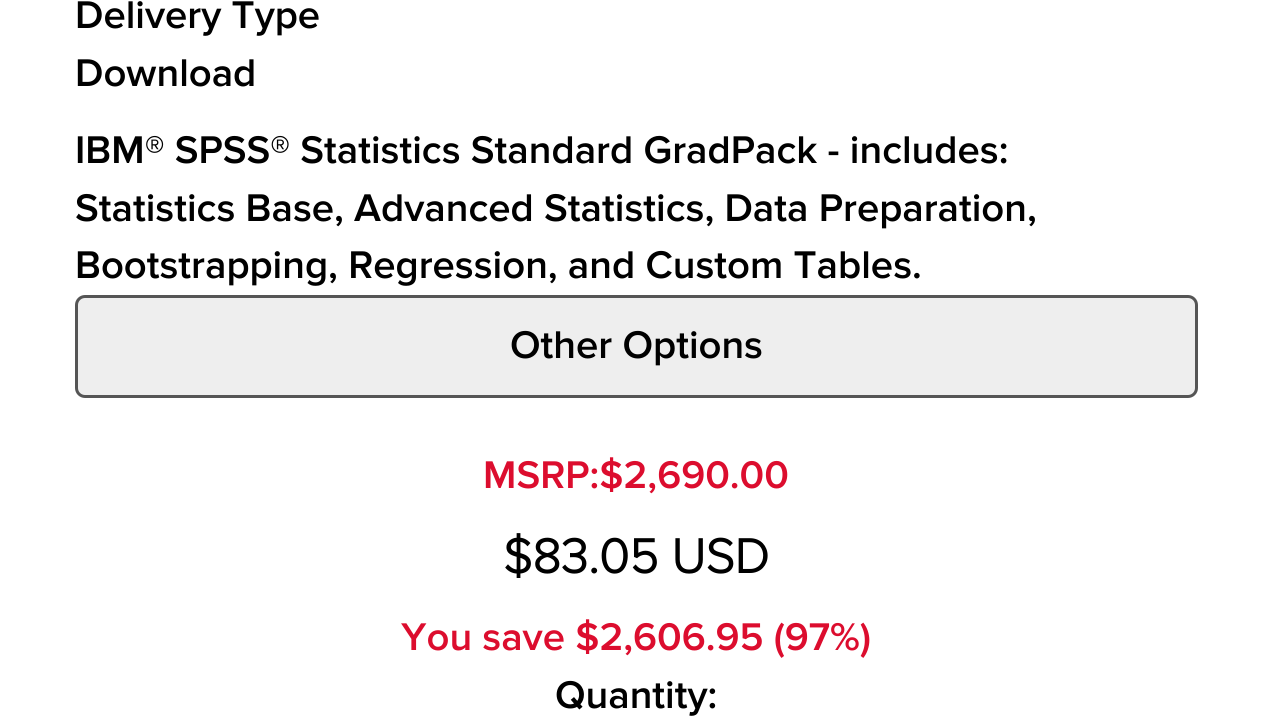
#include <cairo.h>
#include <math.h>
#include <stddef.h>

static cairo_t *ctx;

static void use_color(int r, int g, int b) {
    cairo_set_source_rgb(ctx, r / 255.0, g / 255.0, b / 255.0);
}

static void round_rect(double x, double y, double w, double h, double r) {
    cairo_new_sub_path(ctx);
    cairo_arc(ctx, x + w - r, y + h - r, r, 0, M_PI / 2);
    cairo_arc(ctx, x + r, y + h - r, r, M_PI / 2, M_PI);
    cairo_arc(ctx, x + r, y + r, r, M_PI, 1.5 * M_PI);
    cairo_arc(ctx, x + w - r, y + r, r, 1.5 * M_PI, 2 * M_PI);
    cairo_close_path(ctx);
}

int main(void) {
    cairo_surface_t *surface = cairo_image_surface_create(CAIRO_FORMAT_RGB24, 1272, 719);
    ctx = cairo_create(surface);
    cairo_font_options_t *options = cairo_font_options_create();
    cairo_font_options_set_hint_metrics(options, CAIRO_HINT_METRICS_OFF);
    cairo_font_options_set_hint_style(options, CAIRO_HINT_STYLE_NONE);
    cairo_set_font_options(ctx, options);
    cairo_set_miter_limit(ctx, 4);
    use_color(255, 255, 255);
    cairo_paint(ctx);
    cairo_select_font_face(ctx, "Proxima Nova SemiBold", CAIRO_FONT_SLANT_NORMAL, CAIRO_FONT_WEIGHT_NORMAL);
    cairo_set_font_size(ctx, 40);
    use_color(0, 0, 0);
    cairo_move_to(ctx, 75, 28);
    cairo_show_text(ctx, "Delivery Type");
    cairo_move_to(ctx, 75, 86);
    cairo_show_text(ctx, "Download");
    cairo_move_to(ctx, 75, 163);
    cairo_show_text(ctx, "IBM® SPSS® Statistics Standard GradPack - includes:");
    cairo_move_to(ctx, 75, 221);
    cairo_show_text(ctx, "Statistics Base, Advanced Statistics, Data Preparation,");
    cairo_move_to(ctx, 75, 278);
    cairo_show_text(ctx, "Bootstrapping, Regression, and Custom Tables.");
    use_color(238, 238, 238);
    round_rect(76.5, 296.5, 1120, 100, 8.5);
    cairo_fill_preserve(ctx);
    use_color(85, 85, 85);
    cairo_set_line_width(ctx, 3);
    cairo_stroke(ctx);
    use_color(0, 0, 0);
    cairo_move_to(ctx, 510, 358);
    cairo_show_text(ctx, "Other Options");
    use_color(220, 13, 46);
    cairo_move_to(ctx, 483, 488);
    cairo_show_text(ctx, "MSRP:$2,690.00");
    cairo_select_font_face(ctx, "Proxima Nova", CAIRO_FONT_SLANT_NORMAL, CAIRO_FONT_WEIGHT_BOLD);
    cairo_set_font_size(ctx, 50);
    use_color(0, 0, 0);
    cairo_move_to(ctx, 503, 573);
    cairo_show_text(ctx, "$83.05 USD");
    cairo_select_font_face(ctx, "Proxima Nova SemiBold", CAIRO_FONT_SLANT_NORMAL, CAIRO_FONT_WEIGHT_NORMAL);
    cairo_set_font_size(ctx, 40);
    use_color(220, 13, 46);
    cairo_move_to(ctx, 401, 650);
    cairo_show_text(ctx, "You save $2,606.95 (97%)");
    use_color(0, 0, 0);
    cairo_move_to(ctx, 555, 708);
    cairo_show_text(ctx, "Quantity:");
    cairo_surface_write_to_png(surface, "result.png");
    cairo_font_options_destroy(options);
    cairo_destroy(ctx);
    cairo_surface_destroy(surface);
    return 0;
}
